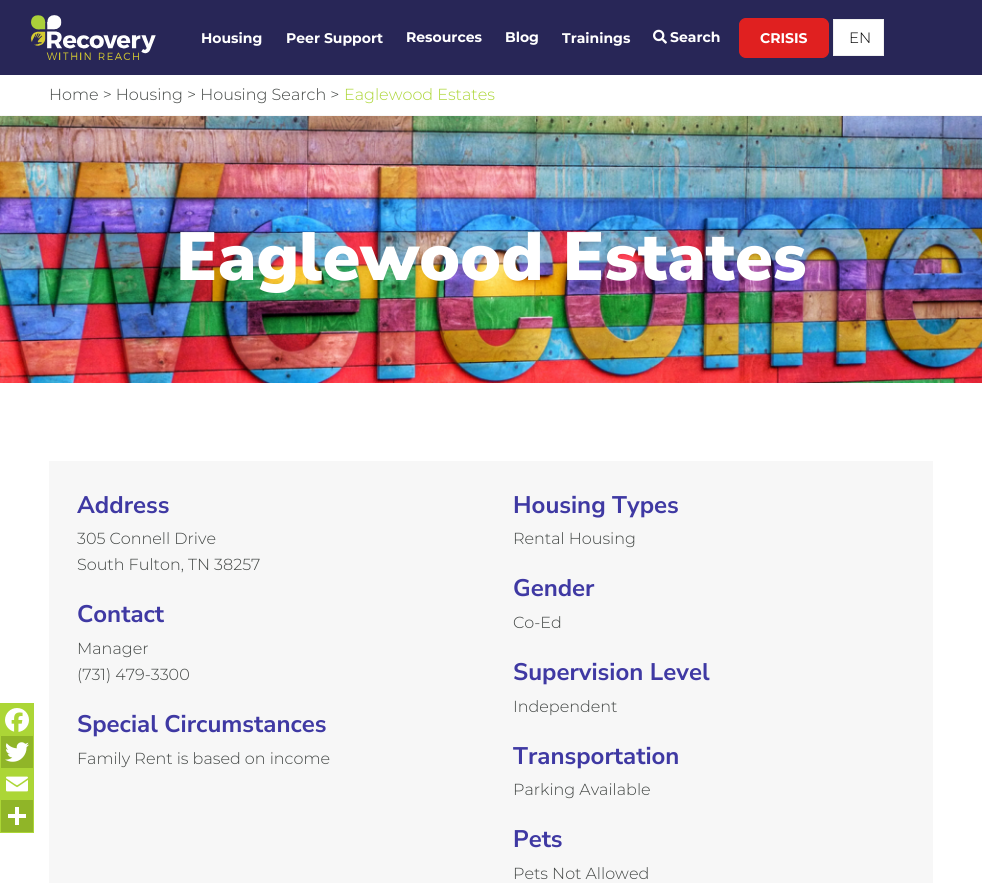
#include <cairo.h>
#include <math.h>
#include <stddef.h>

static cairo_t *ctx;

static void use_color(int r, int g, int b) {
    cairo_set_source_rgb(ctx, r / 255.0, g / 255.0, b / 255.0);
}

static void round_rect(double x, double y, double w, double h, double r) {
    cairo_new_sub_path(ctx);
    cairo_arc(ctx, x + w - r, y + h - r, r, 0, M_PI / 2);
    cairo_arc(ctx, x + r, y + h - r, r, M_PI / 2, M_PI);
    cairo_arc(ctx, x + r, y + r, r, M_PI, 1.5 * M_PI);
    cairo_arc(ctx, x + w - r, y + r, r, 1.5 * M_PI, 2 * M_PI);
    cairo_close_path(ctx);
}

static void picture(const char *path, double x, double y, double w, double h) {
    cairo_surface_t *image = cairo_image_surface_create_from_png(path);
    cairo_save(ctx);
    cairo_set_source_surface(ctx, image, x, y);
    cairo_rectangle(ctx, x, y, w, h);
    cairo_fill(ctx);
    cairo_restore(ctx);
    cairo_surface_destroy(image);
}

int main(void) {
    cairo_surface_t *surface = cairo_image_surface_create(CAIRO_FORMAT_RGB24, 982, 883);
    ctx = cairo_create(surface);
    cairo_font_options_t *options = cairo_font_options_create();
    cairo_font_options_set_hint_metrics(options, CAIRO_HINT_METRICS_OFF);
    cairo_font_options_set_hint_style(options, CAIRO_HINT_STYLE_NONE);
    cairo_set_font_options(ctx, options);
    cairo_set_miter_limit(ctx, 4);
    use_color(255, 255, 255);
    cairo_paint(ctx);
    cairo_rectangle(ctx, 0.5, 703.5, 33, 129);
    use_color(172, 214, 54);
    cairo_set_line_width(ctx, 1);
    cairo_stroke(ctx);
    cairo_rectangle(ctx, 1, 704, 32, 32);
    cairo_fill(ctx);
    picture("img1.png", 5, 708, 24, 24);
    use_color(144, 181, 40);
    cairo_rectangle(ctx, 1, 736, 32, 32);
    cairo_fill(ctx);
    picture("img2.png", 5, 742, 24, 20);
    use_color(172, 214, 54);
    cairo_rectangle(ctx, 1, 768, 32, 32);
    cairo_fill(ctx);
    picture("img3.png", 6, 776, 22, 16);
    use_color(144, 181, 40);
    cairo_rectangle(ctx, 1, 800, 32, 32);
    cairo_fill(ctx);
    use_color(255, 255, 255);
    cairo_rectangle(ctx, 15, 807, 4, 18);
    cairo_fill(ctx);
    cairo_rectangle(ctx, 8, 814, 18, 4);
    cairo_fill(ctx);
    use_color(40, 38, 87);
    cairo_rectangle(ctx, 0, 0, 982, 75);
    cairo_fill(ctx);
    picture("img4.png", 31, 15, 125, 45);
    cairo_select_font_face(ctx, "Montserrat", CAIRO_FONT_SLANT_NORMAL, CAIRO_FONT_WEIGHT_BOLD);
    cairo_set_font_size(ctx, 14);
    use_color(255, 255, 255);
    cairo_move_to(ctx, 201, 43);
    cairo_show_text(ctx, "Housing");
    cairo_move_to(ctx, 286, 43);
    cairo_show_text(ctx, "Peer Support");
    cairo_move_to(ctx, 406, 42);
    cairo_show_text(ctx, "Resources");
    cairo_move_to(ctx, 505, 42);
    cairo_show_text(ctx, "Blog");
    cairo_move_to(ctx, 562, 43);
    cairo_show_text(ctx, "Trainings");
    picture("img5.png", 653, 29, 14, 15);
    cairo_move_to(ctx, 670, 42);
    cairo_show_text(ctx, "Search");
    use_color(224, 32, 32);
    round_rect(739.5, 18.5, 89, 39, 6.5);
    cairo_fill_preserve(ctx);
    cairo_stroke(ctx);
    use_color(255, 255, 255);
    cairo_move_to(ctx, 760, 43);
    cairo_show_text(ctx, "CRISIS");
    cairo_rectangle(ctx, 833.5, 19.5, 50, 36);
    cairo_fill_preserve(ctx);
    use_color(240, 240, 240);
    cairo_stroke(ctx);
    cairo_select_font_face(ctx, "Montserrat Light", CAIRO_FONT_SLANT_NORMAL, CAIRO_FONT_WEIGHT_NORMAL);
    cairo_set_font_size(ctx, 15);
    use_color(0, 0, 0);
    cairo_move_to(ctx, 849, 43);
    cairo_show_text(ctx, "EN");
    use_color(247, 247, 247);
    cairo_rectangle(ctx, 0, 115, 982, 1);
    cairo_fill(ctx);
    cairo_set_font_size(ctx, 16);
    use_color(65, 69, 67);
    cairo_move_to(ctx, 49, 100);
    cairo_show_text(ctx, "Home > Housing > Housing Search >");
    use_color(172, 214, 54);
    cairo_move_to(ctx, 344, 100);
    cairo_show_text(ctx, "Eaglewood Estates");
    picture("img6.png", 0, 116, 982, 267);
    cairo_select_font_face(ctx, "Nunito Sans Black", CAIRO_FONT_SLANT_NORMAL, CAIRO_FONT_WEIGHT_NORMAL);
    cairo_set_font_size(ctx, 68);
    use_color(255, 255, 255);
    cairo_move_to(ctx, 176, 280);
    cairo_show_text(ctx, "Eaglewood Estates");
    use_color(247, 247, 247);
    cairo_rectangle(ctx, 49, 461, 884, 422);
    cairo_fill(ctx);
    cairo_select_font_face(ctx, "Nunito Sans", CAIRO_FONT_SLANT_NORMAL, CAIRO_FONT_WEIGHT_BOLD);
    cairo_set_font_size(ctx, 24);
    use_color(63, 57, 163);
    cairo_move_to(ctx, 77, 513);
    cairo_show_text(ctx, "Address");
    cairo_select_font_face(ctx, "Montserrat Light", CAIRO_FONT_SLANT_NORMAL, CAIRO_FONT_WEIGHT_NORMAL);
    cairo_set_font_size(ctx, 16);
    use_color(65, 69, 67);
    cairo_move_to(ctx, 77, 544);
    cairo_show_text(ctx, "305 Connell Drive");
    cairo_move_to(ctx, 77, 570);
    cairo_show_text(ctx, "South Fulton, TN 38257");
    cairo_select_font_face(ctx, "Nunito Sans", CAIRO_FONT_SLANT_NORMAL, CAIRO_FONT_WEIGHT_BOLD);
    cairo_set_font_size(ctx, 24);
    use_color(63, 57, 163);
    cairo_move_to(ctx, 77, 622);
    cairo_show_text(ctx, "Contact");
    cairo_select_font_face(ctx, "Montserrat Light", CAIRO_FONT_SLANT_NORMAL, CAIRO_FONT_WEIGHT_NORMAL);
    cairo_set_font_size(ctx, 16);
    use_color(65, 69, 67);
    cairo_move_to(ctx, 77, 654);
    cairo_show_text(ctx, "Manager");
    cairo_move_to(ctx, 77, 680);
    cairo_show_text(ctx, "(731) 479-3300");
    cairo_select_font_face(ctx, "Nunito Sans", CAIRO_FONT_SLANT_NORMAL, CAIRO_FONT_WEIGHT_BOLD);
    cairo_set_font_size(ctx, 24);
    use_color(63, 57, 163);
    cairo_move_to(ctx, 77, 732);
    cairo_show_text(ctx, "Special Circumstances");
    cairo_select_font_face(ctx, "Montserrat Light", CAIRO_FONT_SLANT_NORMAL, CAIRO_FONT_WEIGHT_NORMAL);
    cairo_set_font_size(ctx, 16);
    use_color(65, 69, 67);
    cairo_move_to(ctx, 77, 764);
    cairo_show_text(ctx, "Family Rent is based on income");
    cairo_select_font_face(ctx, "Nunito Sans", CAIRO_FONT_SLANT_NORMAL, CAIRO_FONT_WEIGHT_BOLD);
    cairo_set_font_size(ctx, 24);
    use_color(63, 57, 163);
    cairo_move_to(ctx, 513, 513);
    cairo_show_text(ctx, "Housing Types");
    cairo_select_font_face(ctx, "Montserrat Light", CAIRO_FONT_SLANT_NORMAL, CAIRO_FONT_WEIGHT_NORMAL);
    cairo_set_font_size(ctx, 16);
    use_color(65, 69, 67);
    cairo_move_to(ctx, 513, 544);
    cairo_show_text(ctx, "Rental Housing");
    cairo_select_font_face(ctx, "Nunito Sans", CAIRO_FONT_SLANT_NORMAL, CAIRO_FONT_WEIGHT_BOLD);
    cairo_set_font_size(ctx, 24);
    use_color(63, 57, 163);
    cairo_move_to(ctx, 513, 596);
    cairo_show_text(ctx, "Gender");
    cairo_select_font_face(ctx, "Montserrat Light", CAIRO_FONT_SLANT_NORMAL, CAIRO_FONT_WEIGHT_NORMAL);
    cairo_set_font_size(ctx, 16);
    use_color(65, 69, 67);
    cairo_move_to(ctx, 513, 628);
    cairo_show_text(ctx, "Co-Ed");
    cairo_select_font_face(ctx, "Nunito Sans", CAIRO_FONT_SLANT_NORMAL, CAIRO_FONT_WEIGHT_BOLD);
    cairo_set_font_size(ctx, 24);
    use_color(63, 57, 163);
    cairo_move_to(ctx, 513, 680);
    cairo_show_text(ctx, "Supervision Level");
    cairo_select_font_face(ctx, "Montserrat Light", CAIRO_FONT_SLANT_NORMAL, CAIRO_FONT_WEIGHT_NORMAL);
    cairo_set_font_size(ctx, 16);
    use_color(65, 69, 67);
    cairo_move_to(ctx, 513, 712);
    cairo_show_text(ctx, "Independent");
    cairo_select_font_face(ctx, "Nunito Sans", CAIRO_FONT_SLANT_NORMAL, CAIRO_FONT_WEIGHT_BOLD);
    cairo_set_font_size(ctx, 24);
    use_color(63, 57, 163);
    cairo_move_to(ctx, 513, 764);
    cairo_show_text(ctx, "Transportation");
    cairo_select_font_face(ctx, "Montserrat Light", CAIRO_FONT_SLANT_NORMAL, CAIRO_FONT_WEIGHT_NORMAL);
    cairo_set_font_size(ctx, 16);
    use_color(65, 69, 67);
    cairo_move_to(ctx, 513, 795);
    cairo_show_text(ctx, "Parking Available");
    cairo_select_font_face(ctx, "Nunito Sans", CAIRO_FONT_SLANT_NORMAL, CAIRO_FONT_WEIGHT_BOLD);
    cairo_set_font_size(ctx, 24);
    use_color(63, 57, 163);
    cairo_move_to(ctx, 513, 847);
    cairo_show_text(ctx, "Pets");
    cairo_select_font_face(ctx, "Montserrat Light", CAIRO_FONT_SLANT_NORMAL, CAIRO_FONT_WEIGHT_NORMAL);
    cairo_set_font_size(ctx, 16);
    use_color(65, 69, 67);
    cairo_move_to(ctx, 513, 879);
    cairo_show_text(ctx, "Pets Not Allowed");
    cairo_surface_write_to_png(surface, "result.png");
    cairo_font_options_destroy(options);
    cairo_destroy(ctx);
    cairo_surface_destroy(surface);
    return 0;
}
